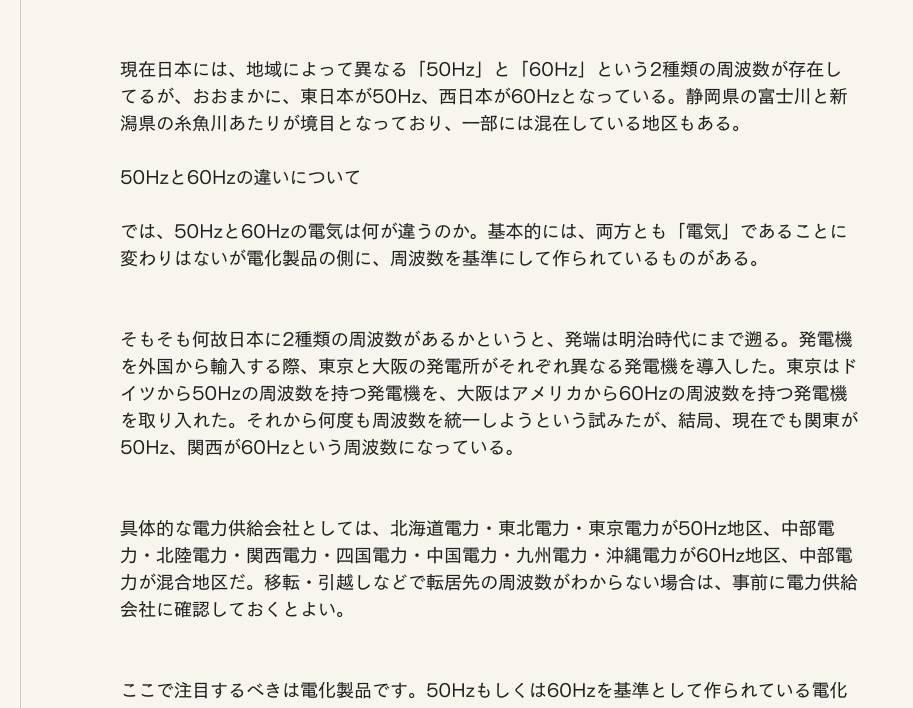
#include <cairo.h>
#include <math.h>
#include <stddef.h>

static cairo_t *ctx;

static void use_color(int r, int g, int b) {
    cairo_set_source_rgb(ctx, r / 255.0, g / 255.0, b / 255.0);
}

int main(void) {
    cairo_surface_t *surface = cairo_image_surface_create(CAIRO_FORMAT_RGB24, 913, 708);
    ctx = cairo_create(surface);
    cairo_font_options_t *options = cairo_font_options_create();
    cairo_font_options_set_hint_metrics(options, CAIRO_HINT_METRICS_OFF);
    cairo_font_options_set_hint_style(options, CAIRO_HINT_STYLE_NONE);
    cairo_set_font_options(ctx, options);
    cairo_set_miter_limit(ctx, 4);
    use_color(247, 245, 238);
    cairo_paint(ctx);
    cairo_rectangle(ctx, 20.5, -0.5, 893, 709);
    use_color(207, 205, 200);
    cairo_set_line_width(ctx, 1);
    cairo_stroke(ctx);
    cairo_select_font_face(ctx, "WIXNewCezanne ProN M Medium", CAIRO_FONT_SLANT_NORMAL, CAIRO_FONT_WEIGHT_NORMAL);
    cairo_set_font_size(ctx, 18);
    use_color(32, 32, 32);
    cairo_move_to(ctx, 120, 76);
    cairo_show_text(ctx, "現在日本には、地域によって異なる「50Hz」と「60Hz」という2種類の周波数が存在し");
    cairo_move_to(ctx, 120, 103);
    cairo_show_text(ctx, "てるが、おおまかに、東日本が50Hz、西日本が60Hzとなっている。静岡県の富士川と新");
    cairo_move_to(ctx, 120, 130);
    cairo_show_text(ctx, "潟県の糸魚川あたりが境目となっており、一部には混在している地区もある。");
    cairo_move_to(ctx, 120, 184);
    cairo_show_text(ctx, "50Hzと60Hzの違いについて");
    cairo_move_to(ctx, 120, 238);
    cairo_show_text(ctx, "では、50Hzと60Hzの電気は何が違うのか。基本的には、両方とも「電気」であることに");
    cairo_move_to(ctx, 120, 265);
    cairo_show_text(ctx, "変わりはないが電化製品の側に、周波数を基準にして作られているものがある。");
    cairo_move_to(ctx, 120, 346);
    cairo_show_text(ctx, "そもそも何故日本に2種類の周波数があるかというと、発端は明治時代にまで遡る。発電機");
    cairo_move_to(ctx, 120, 373);
    cairo_show_text(ctx, "を外国から輸入する際、東京と大阪の発電所がそれぞれ異なる発電機を導入した。東京はド");
    cairo_move_to(ctx, 120, 400);
    cairo_show_text(ctx, "イツから50Hzの周波数を持つ発電機を、大阪はアメリカから60Hzの周波数を持つ発電機");
    cairo_move_to(ctx, 120, 427);
    cairo_show_text(ctx, "を取り入れた。それから何度も周波数を統一しようという試みたが、結局、現在でも関東が");
    cairo_move_to(ctx, 120, 454);
    cairo_show_text(ctx, "50Hz、関西が60Hzという周波数になっている。");
    cairo_move_to(ctx, 120, 535);
    cairo_show_text(ctx, "具体的な電力供給会社としては、北海道電力・東北電力・東京電力が50Hz地区、中部電");
    cairo_move_to(ctx, 120, 562);
    cairo_show_text(ctx, "力・北陸電力・関西電力・四国電力・中国電力・九州電力・沖縄電力が60Hz地区、中部電");
    cairo_move_to(ctx, 120, 589);
    cairo_show_text(ctx, "力が混合地区だ。移転・引越しなどで転居先の周波数がわからない場合は、事前に電力供給");
    cairo_move_to(ctx, 120, 616);
    cairo_show_text(ctx, "会社に確認しておくとよい。");
    cairo_move_to(ctx, 120, 697);
    cairo_show_text(ctx, "ここで注目するべきは電化製品です。50Hzもしくは60Hzを基準として作られている電化");
    cairo_surface_write_to_png(surface, "result.png");
    cairo_font_options_destroy(options);
    cairo_destroy(ctx);
    cairo_surface_destroy(surface);
    return 0;
}
